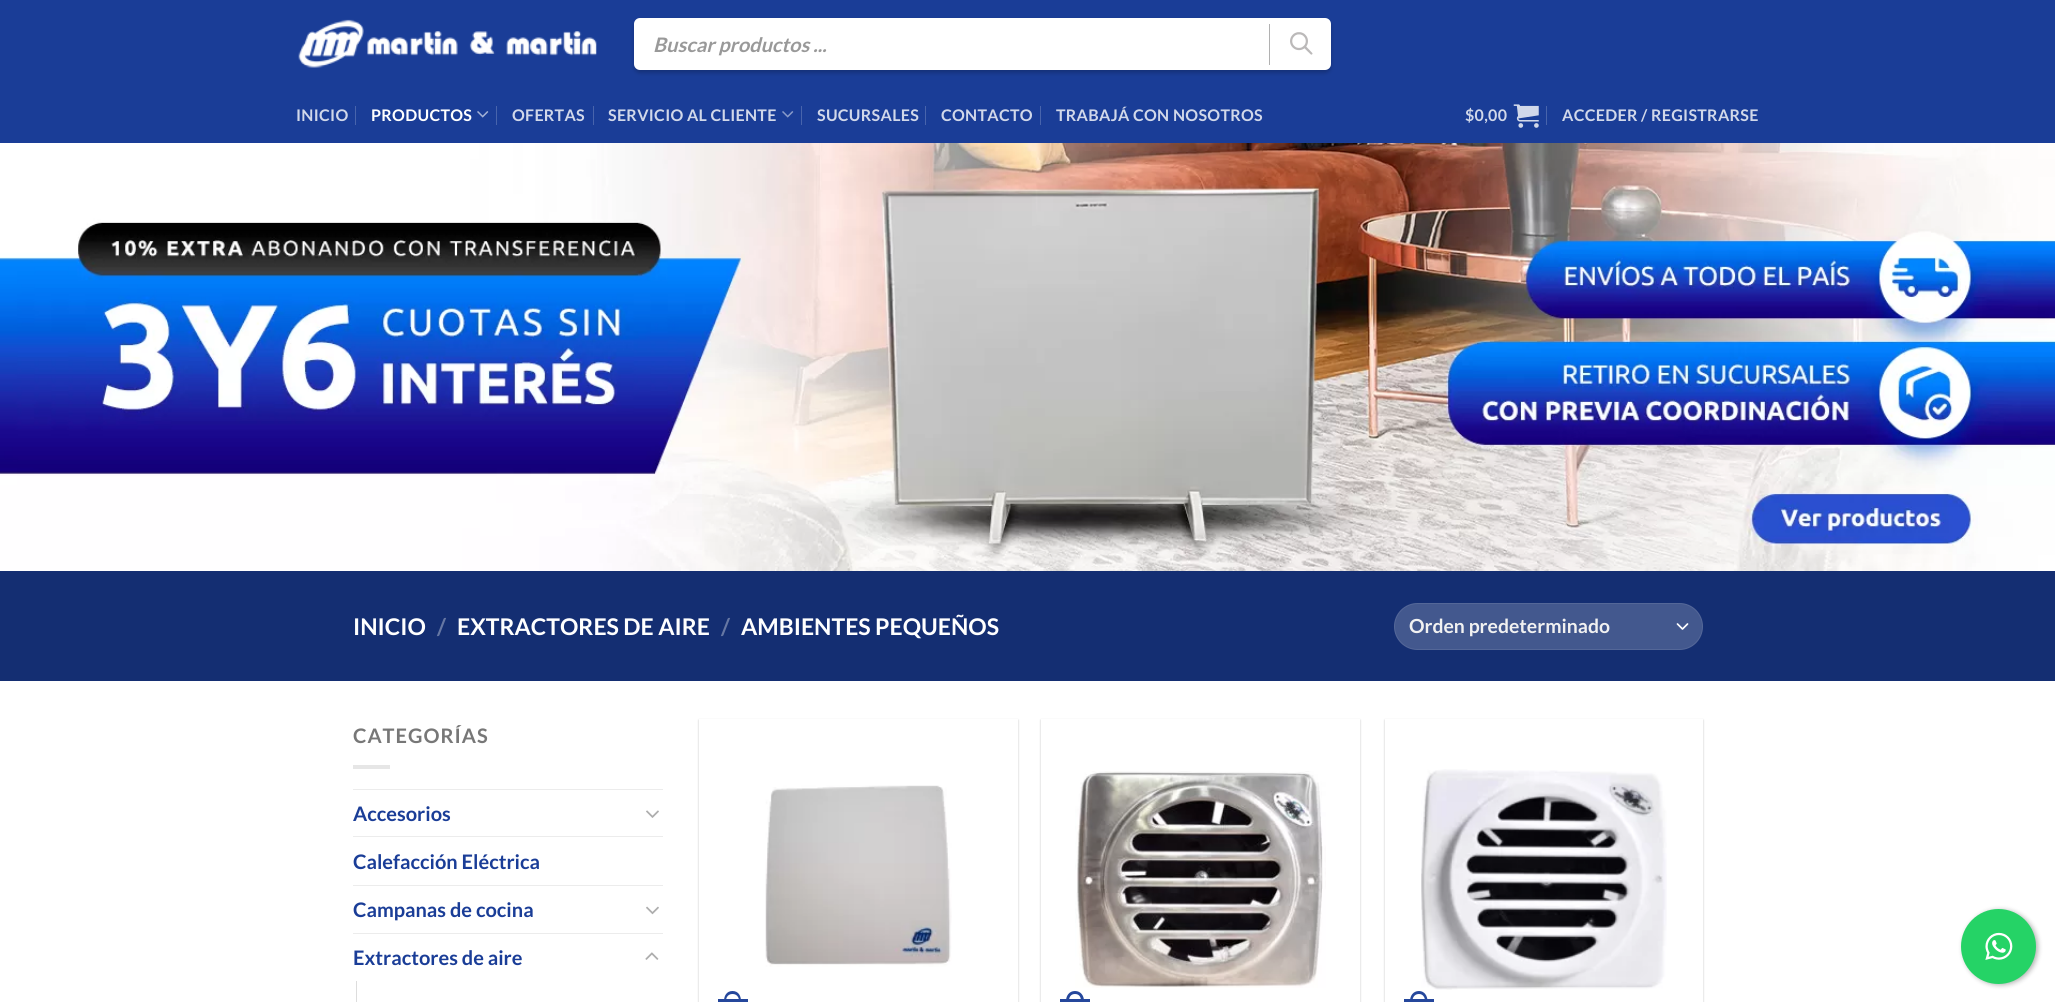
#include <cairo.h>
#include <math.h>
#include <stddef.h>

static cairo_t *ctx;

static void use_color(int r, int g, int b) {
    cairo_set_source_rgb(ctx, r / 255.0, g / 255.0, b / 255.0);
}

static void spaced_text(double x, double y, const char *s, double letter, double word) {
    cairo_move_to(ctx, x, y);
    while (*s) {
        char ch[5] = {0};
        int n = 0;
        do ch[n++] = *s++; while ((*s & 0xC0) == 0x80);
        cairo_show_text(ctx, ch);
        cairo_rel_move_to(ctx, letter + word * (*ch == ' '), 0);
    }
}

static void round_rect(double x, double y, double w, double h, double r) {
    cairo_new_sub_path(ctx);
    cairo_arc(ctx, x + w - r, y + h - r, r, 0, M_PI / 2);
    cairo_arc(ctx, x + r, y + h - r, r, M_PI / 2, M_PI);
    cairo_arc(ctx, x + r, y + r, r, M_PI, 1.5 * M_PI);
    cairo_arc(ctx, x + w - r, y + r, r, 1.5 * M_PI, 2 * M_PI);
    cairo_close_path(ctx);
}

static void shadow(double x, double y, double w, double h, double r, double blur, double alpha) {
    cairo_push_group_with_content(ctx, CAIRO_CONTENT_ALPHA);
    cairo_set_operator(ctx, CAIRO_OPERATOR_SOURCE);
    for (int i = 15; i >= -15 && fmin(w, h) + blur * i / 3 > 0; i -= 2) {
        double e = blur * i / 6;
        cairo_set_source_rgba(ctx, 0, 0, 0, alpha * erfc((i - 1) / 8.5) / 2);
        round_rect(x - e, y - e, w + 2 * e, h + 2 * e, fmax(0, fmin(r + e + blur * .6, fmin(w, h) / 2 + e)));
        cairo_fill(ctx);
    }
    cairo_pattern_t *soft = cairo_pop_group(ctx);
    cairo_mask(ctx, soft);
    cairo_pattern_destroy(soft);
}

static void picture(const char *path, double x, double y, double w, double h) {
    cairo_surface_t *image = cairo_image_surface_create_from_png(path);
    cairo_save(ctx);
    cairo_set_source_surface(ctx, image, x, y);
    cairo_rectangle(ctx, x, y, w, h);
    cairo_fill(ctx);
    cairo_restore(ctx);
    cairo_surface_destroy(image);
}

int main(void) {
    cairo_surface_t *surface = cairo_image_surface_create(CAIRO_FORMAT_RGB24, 2055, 1002);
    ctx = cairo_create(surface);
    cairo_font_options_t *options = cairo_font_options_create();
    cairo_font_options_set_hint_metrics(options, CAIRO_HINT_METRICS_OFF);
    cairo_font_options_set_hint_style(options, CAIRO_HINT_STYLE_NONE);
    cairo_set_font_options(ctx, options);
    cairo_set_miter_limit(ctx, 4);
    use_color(255, 255, 255);
    cairo_paint(ctx);
    use_color(26, 61, 151);
    cairo_rectangle(ctx, 0, 0, 2055, 143);
    cairo_fill(ctx);
    picture("img1.png", 298, 19, 299, 49);
    use_color(0, 0, 0);
    shadow(634, 20, 697, 53, 6, 2, 0.2);
    use_color(255, 255, 255);
    round_rect(634, 18, 697, 52, 6);
    cairo_fill(ctx);
    cairo_select_font_face(ctx, "Lato", CAIRO_FONT_SLANT_ITALIC, CAIRO_FONT_WEIGHT_BOLD);
    cairo_set_font_size(ctx, 20);
    use_color(153, 153, 153);
    cairo_move_to(ctx, 653, 52);
    cairo_show_text(ctx, "Buscar productos ...");
    use_color(177, 177, 177);
    cairo_rectangle(ctx, 1269, 24, 1, 41);
    cairo_fill(ctx);
    picture("img2.png", 1290, 32, 23, 23);
    cairo_select_font_face(ctx, "Lato", CAIRO_FONT_SLANT_NORMAL, CAIRO_FONT_WEIGHT_BOLD);
    cairo_set_font_size(ctx, 16);
    use_color(209, 216, 234);
    spaced_text(296, 121, "INICIO", 0.3, 0);
    use_color(72, 100, 172);
    cairo_rectangle(ctx, 355, 106, 1, 19);
    cairo_fill(ctx);
    use_color(255, 255, 255);
    spaced_text(371, 121, "PRODUCTOS", 0.3, 0);
    picture("img3.png", 477, 111, 12, 7);
    use_color(72, 100, 172);
    cairo_rectangle(ctx, 496, 106, 1, 19);
    cairo_fill(ctx);
    use_color(209, 216, 234);
    spaced_text(512, 121, "OFERTAS", 0.3, 0);
    use_color(72, 100, 172);
    cairo_rectangle(ctx, 593, 106, 1, 19);
    cairo_fill(ctx);
    use_color(209, 216, 234);
    spaced_text(608, 121, "SERVICIO AL CLIENTE", 0.3, 0);
    picture("img4.png", 782, 111, 12, 7);
    use_color(72, 100, 172);
    cairo_rectangle(ctx, 801, 106, 1, 19);
    cairo_fill(ctx);
    use_color(209, 216, 234);
    spaced_text(817, 121, "SUCURSALES", 0.3, 0);
    use_color(72, 100, 172);
    cairo_rectangle(ctx, 925, 106, 1, 19);
    cairo_fill(ctx);
    use_color(209, 216, 234);
    spaced_text(941, 121, "CONTACTO", 0.3, 0);
    use_color(72, 100, 172);
    cairo_rectangle(ctx, 1040, 106, 1, 19);
    cairo_fill(ctx);
    use_color(209, 216, 234);
    spaced_text(1056, 121, "TRABAJÁ CON NOSOTROS", 0.3, 0);
    spaced_text(1465, 121, "$0,00", 0.3, 0);
    picture("img5.png", 1513, 104, 26, 24);
    use_color(72, 100, 172);
    cairo_rectangle(ctx, 1546, 106, 1, 19);
    cairo_fill(ctx);
    use_color(209, 216, 234);
    spaced_text(1562, 121, "ACCEDER / REGISTRARSE", 0.3, 0);
    picture("img6.png", 0, 143, 2055, 428);
    use_color(20, 46, 114);
    cairo_rectangle(ctx, 0, 571, 2055, 110);
    cairo_fill(ctx);
    cairo_set_font_size(ctx, 23);
    use_color(255, 255, 255);
    cairo_move_to(ctx, 353, 635);
    cairo_show_text(ctx, "INICIO");
    use_color(102, 119, 163);
    cairo_move_to(ctx, 437, 635);
    cairo_show_text(ctx, "/");
    use_color(255, 255, 255);
    cairo_move_to(ctx, 457, 635);
    cairo_show_text(ctx, "EXTRACTORES DE AIRE");
    use_color(102, 119, 163);
    cairo_move_to(ctx, 721, 635);
    cairo_show_text(ctx, "/");
    use_color(255, 255, 255);
    cairo_move_to(ctx, 741, 635);
    cairo_show_text(ctx, "AMBIENTES PEQUEÑOS");
    use_color(67, 88, 142);
    round_rect(1394, 603, 309, 47, 23.5);
    cairo_fill(ctx);
    cairo_new_path(ctx);
    cairo_move_to(ctx, 1677.5, 624);
    cairo_line_to(ctx, 1682.5, 629);
    cairo_line_to(ctx, 1687.5, 624);
    use_color(255, 255, 255);
    cairo_set_line_width(ctx, 1.7);
    cairo_set_line_cap(ctx, CAIRO_LINE_CAP_ROUND);
    cairo_set_line_join(ctx, CAIRO_LINE_JOIN_ROUND);
    cairo_stroke(ctx);
    round_rect(1394.5, 603.5, 308, 46, 23);
    cairo_set_source_rgba(ctx, 1, 1, 1, 0.09);
    cairo_set_line_width(ctx, 1);
    cairo_set_line_cap(ctx, CAIRO_LINE_CAP_BUTT);
    cairo_set_line_join(ctx, CAIRO_LINE_JOIN_MITER);
    cairo_stroke(ctx);
    cairo_set_font_size(ctx, 19.4);
    use_color(241, 241, 241);
    cairo_move_to(ctx, 1409, 633);
    cairo_show_text(ctx, "Orden predeterminado");
    cairo_set_font_size(ctx, 20);
    use_color(119, 119, 119);
    spaced_text(353, 743, "CATEGORÍAS", 1, 0);
    use_color(230, 230, 230);
    cairo_rectangle(ctx, 353, 765, 37, 4);
    cairo_fill(ctx);
    use_color(236, 236, 236);
    cairo_rectangle(ctx, 353, 789, 310, 1);
    cairo_fill(ctx);
    use_color(26, 61, 151);
    cairo_move_to(ctx, 353, 821);
    cairo_show_text(ctx, "Accesorios");
    picture("img7.png", 646, 810, 13, 8);
    use_color(236, 236, 236);
    cairo_rectangle(ctx, 353, 836, 310, 1);
    cairo_fill(ctx);
    use_color(26, 61, 151);
    cairo_move_to(ctx, 353, 869);
    cairo_show_text(ctx, "Calefacción Eléctrica");
    use_color(236, 236, 236);
    cairo_rectangle(ctx, 353, 885, 310, 1);
    cairo_fill(ctx);
    use_color(26, 61, 151);
    cairo_move_to(ctx, 353, 917);
    cairo_show_text(ctx, "Campanas de cocina");
    picture("img8.png", 646, 906, 13, 9);
    use_color(236, 236, 236);
    cairo_rectangle(ctx, 353, 933, 310, 1);
    cairo_fill(ctx);
    use_color(26, 61, 151);
    cairo_move_to(ctx, 353, 965);
    cairo_show_text(ctx, "Extractores de aire");
    picture("img9.png", 645, 952, 14, 8);
    use_color(221, 221, 221);
    cairo_rectangle(ctx, 356, 981, 1, 21);
    cairo_fill(ctx);
    use_color(0, 0, 0);
    shadow(699, 720, 319, 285, 0, 1, 0.24);
    use_color(255, 255, 255);
    cairo_rectangle(ctx, 699, 719, 319, 283);
    cairo_fill(ctx);
    picture("img10.png", 765, 785, 187, 182);
    cairo_rectangle(ctx, 719.5, 1000.5, 27, 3);
    use_color(37, 71, 156);
    cairo_set_line_width(ctx, 3);
    cairo_stroke(ctx);
    cairo_set_fill_rule(ctx, CAIRO_FILL_RULE_EVEN_ODD);
    cairo_new_path(ctx);
    cairo_move_to(ctx, 732.5, 991);
    cairo_curve_to(ctx, 738.5, 991, 741, 996, 741, 1001);
    cairo_line_to(ctx, 724, 1001);
    cairo_curve_to(ctx, 724, 996, 726.5, 991, 732.5, 991);
    cairo_close_path(ctx);
    cairo_move_to(ctx, 732.5, 994);
    cairo_curve_to(ctx, 737, 994, 739, 997.5, 739, 1001);
    cairo_line_to(ctx, 726, 1001);
    cairo_curve_to(ctx, 726, 997.5, 728, 994, 732.5, 994);
    cairo_close_path(ctx);
    cairo_fill(ctx);
    use_color(0, 0, 0);
    shadow(1041, 720, 319, 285, 0, 1, 0.24);
    use_color(255, 255, 255);
    cairo_rectangle(ctx, 1041, 719, 319, 283);
    cairo_fill(ctx);
    picture("img11.png", 1075, 771, 251, 217);
    cairo_rectangle(ctx, 1061.5, 1000.5, 27, 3);
    use_color(37, 71, 156);
    cairo_stroke(ctx);
    cairo_new_path(ctx);
    cairo_move_to(ctx, 1075, 991);
    cairo_curve_to(ctx, 1081, 991, 1084, 996, 1084, 1001);
    cairo_line_to(ctx, 1066, 1001);
    cairo_curve_to(ctx, 1066, 996, 1069, 991, 1075, 991);
    cairo_close_path(ctx);
    cairo_move_to(ctx, 1075, 994);
    cairo_curve_to(ctx, 1079.5, 994, 1081, 997.5, 1081, 1001);
    cairo_line_to(ctx, 1069, 1001);
    cairo_curve_to(ctx, 1069, 997.5, 1070.5, 994, 1075, 994);
    cairo_close_path(ctx);
    cairo_fill(ctx);
    use_color(0, 0, 0);
    shadow(1385, 720, 318, 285, 0, 1, 0.24);
    use_color(255, 255, 255);
    cairo_rectangle(ctx, 1385, 719, 318, 283);
    cairo_fill(ctx);
    picture("img12.png", 1421, 769, 246, 221);
    cairo_rectangle(ctx, 1405.5, 1000.5, 27, 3);
    use_color(37, 71, 156);
    cairo_stroke(ctx);
    cairo_new_path(ctx);
    cairo_move_to(ctx, 1419, 991);
    cairo_curve_to(ctx, 1424.5, 991, 1427.5, 996, 1427.5, 1001);
    cairo_line_to(ctx, 1410, 1001);
    cairo_curve_to(ctx, 1410, 996, 1413, 991, 1419, 991);
    cairo_close_path(ctx);
    cairo_move_to(ctx, 1419, 994);
    cairo_curve_to(ctx, 1423, 994, 1425, 997.5, 1425, 1001);
    cairo_line_to(ctx, 1412.5, 1001);
    cairo_curve_to(ctx, 1412.5, 997.5, 1414.5, 994, 1419, 994);
    cairo_close_path(ctx);
    cairo_fill(ctx);
    use_color(0, 0, 0);
    shadow(1963, 910, 75, 75, 37.5, 2.5, 0.3);
    use_color(37, 211, 102);
    cairo_arc(ctx, 1998.5, 946.5, 37.5, 0, 2 * M_PI);
    cairo_fill(ctx);
    picture("img13.png", 1985, 932, 28, 28);
    cairo_surface_write_to_png(surface, "result.png");
    cairo_font_options_destroy(options);
    cairo_destroy(ctx);
    cairo_surface_destroy(surface);
    return 0;
}
